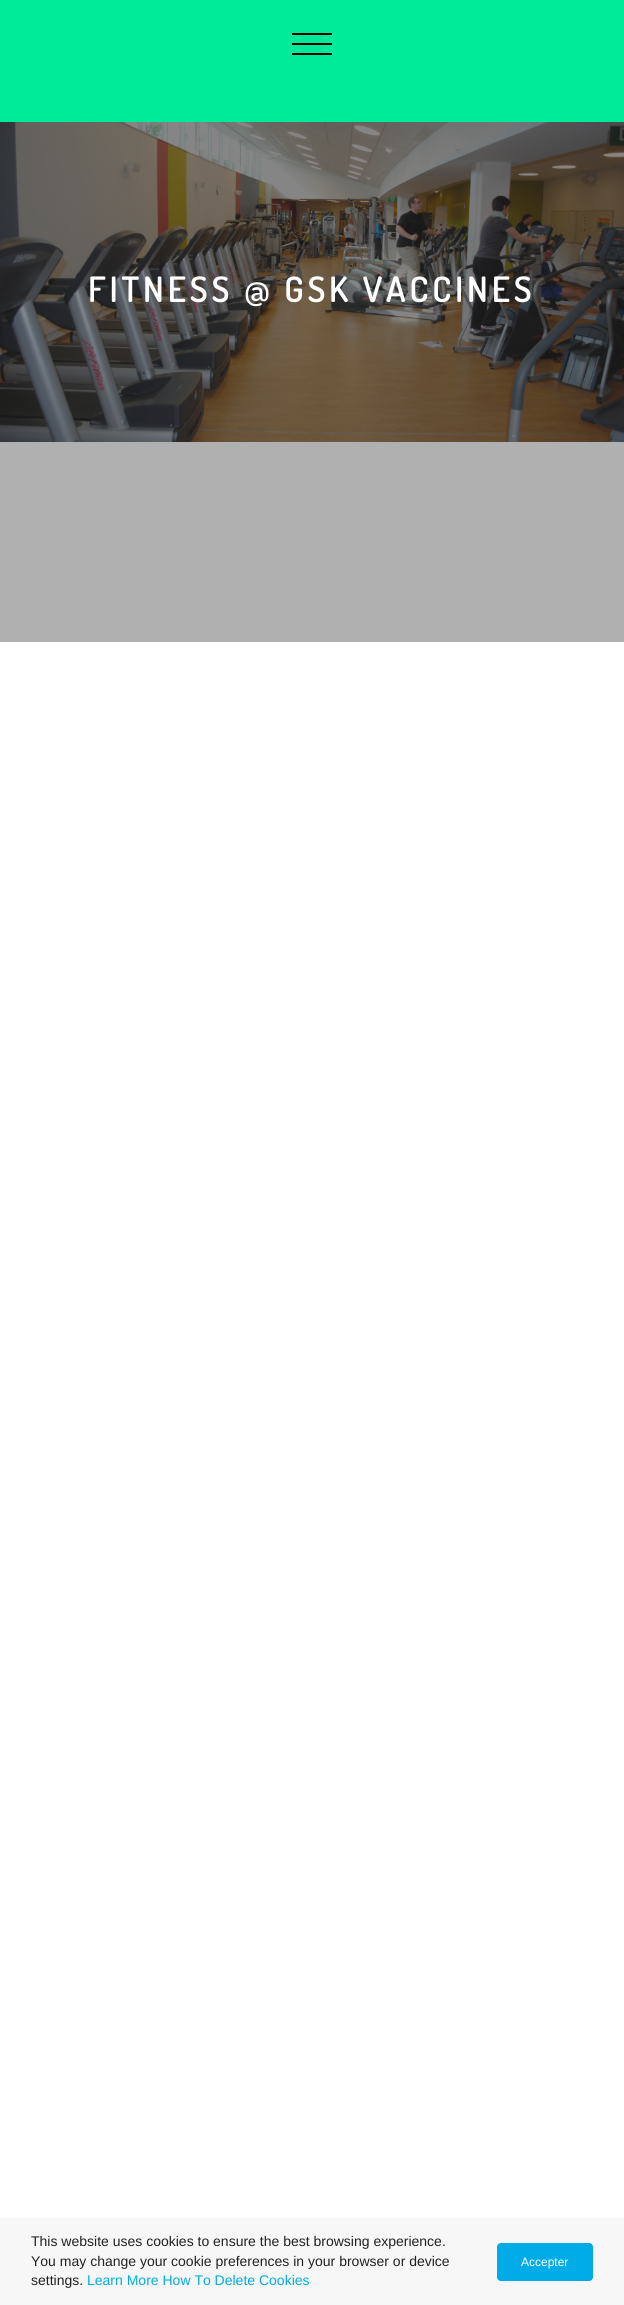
#include <cairo.h>
#include <math.h>
#include <stddef.h>

static cairo_t *ctx;

static void use_color(int r, int g, int b) {
    cairo_set_source_rgb(ctx, r / 255.0, g / 255.0, b / 255.0);
}

static void spaced_text(double x, double y, const char *s, double letter, double word) {
    cairo_move_to(ctx, x, y);
    while (*s) {
        char ch[5] = {0};
        int n = 0;
        do ch[n++] = *s++; while ((*s & 0xC0) == 0x80);
        cairo_show_text(ctx, ch);
        cairo_rel_move_to(ctx, letter + word * (*ch == ' '), 0);
    }
}

static void round_rect(double x, double y, double w, double h, double r) {
    cairo_new_sub_path(ctx);
    cairo_arc(ctx, x + w - r, y + h - r, r, 0, M_PI / 2);
    cairo_arc(ctx, x + r, y + h - r, r, M_PI / 2, M_PI);
    cairo_arc(ctx, x + r, y + r, r, M_PI, 1.5 * M_PI);
    cairo_arc(ctx, x + w - r, y + r, r, 1.5 * M_PI, 2 * M_PI);
    cairo_close_path(ctx);
}

static void picture(const char *path, double x, double y, double w, double h) {
    cairo_surface_t *image = cairo_image_surface_create_from_png(path);
    cairo_save(ctx);
    cairo_set_source_surface(ctx, image, x, y);
    cairo_rectangle(ctx, x, y, w, h);
    cairo_fill(ctx);
    cairo_restore(ctx);
    cairo_surface_destroy(image);
}

int main(void) {
    cairo_surface_t *surface = cairo_image_surface_create(CAIRO_FORMAT_RGB24, 624, 2305);
    ctx = cairo_create(surface);
    cairo_font_options_t *options = cairo_font_options_create();
    cairo_font_options_set_hint_metrics(options, CAIRO_HINT_METRICS_OFF);
    cairo_font_options_set_hint_style(options, CAIRO_HINT_STYLE_NONE);
    cairo_set_font_options(ctx, options);
    cairo_set_miter_limit(ctx, 4);
    use_color(255, 255, 255);
    cairo_paint(ctx);
    use_color(0, 235, 153);
    cairo_rectangle(ctx, 0, 0, 624, 122);
    cairo_fill(ctx);
    use_color(0, 0, 0);
    cairo_rectangle(ctx, 292, 33, 40, 2);
    cairo_fill(ctx);
    cairo_rectangle(ctx, 292, 43, 40, 2);
    cairo_fill(ctx);
    cairo_rectangle(ctx, 292, 53, 40, 2);
    cairo_fill(ctx);
    picture("img1.png", 0, 122, 624, 320);
    cairo_select_font_face(ctx, "Dosis SemiBold", CAIRO_FONT_SLANT_NORMAL, CAIRO_FONT_WEIGHT_NORMAL);
    cairo_set_font_size(ctx, 35);
    use_color(255, 255, 255);
    spaced_text(88, 302, "FITNESS @ GSK VACCINES", 3.8, 0);
    use_color(176, 176, 176);
    cairo_rectangle(ctx, 0, 442, 624, 200);
    cairo_fill(ctx);
    use_color(247, 247, 247);
    cairo_rectangle(ctx, 0, 2218, 624, 87);
    cairo_fill(ctx);
    cairo_select_font_face(ctx, "Liberation Sans", CAIRO_FONT_SLANT_NORMAL, CAIRO_FONT_WEIGHT_NORMAL);
    cairo_set_font_size(ctx, 14);
    use_color(34, 34, 34);
    cairo_move_to(ctx, 31, 2246);
    cairo_show_text(ctx, "This website uses cookies to ensure the best browsing experience.");
    cairo_move_to(ctx, 31, 2266);
    cairo_show_text(ctx, "You may change your cookie preferences in your browser or device");
    cairo_move_to(ctx, 31, 2285);
    cairo_show_text(ctx, "settings.");
    use_color(0, 172, 230);
    cairo_move_to(ctx, 87, 2285);
    cairo_show_text(ctx, "Learn More How To Delete Cookies");
    use_color(0, 172, 232);
    round_rect(497, 2243, 96, 38, 4);
    cairo_fill(ctx);
    cairo_set_font_size(ctx, 12);
    use_color(255, 255, 255);
    cairo_move_to(ctx, 521, 2266);
    cairo_show_text(ctx, "Accepter");
    cairo_surface_write_to_png(surface, "result.png");
    cairo_font_options_destroy(options);
    cairo_destroy(ctx);
    cairo_surface_destroy(surface);
    return 0;
}
